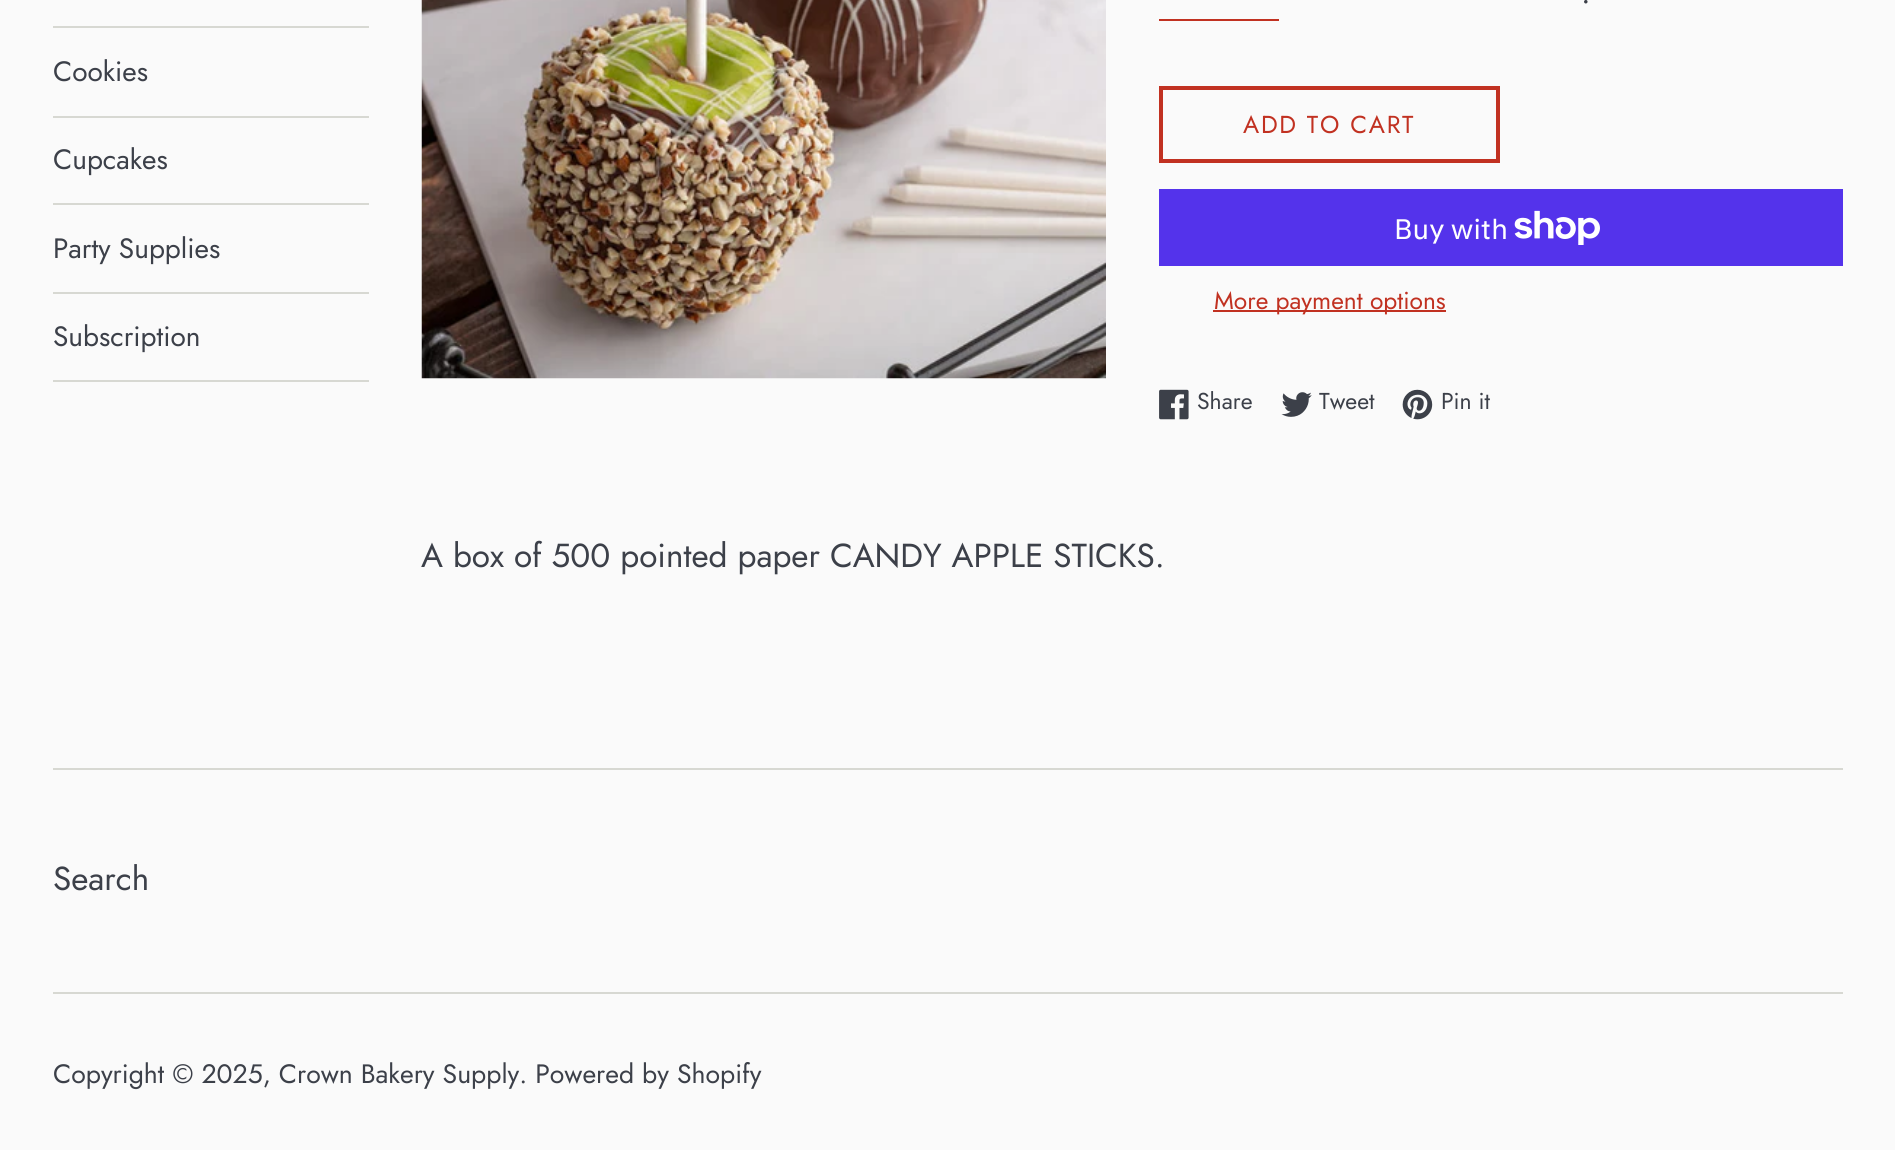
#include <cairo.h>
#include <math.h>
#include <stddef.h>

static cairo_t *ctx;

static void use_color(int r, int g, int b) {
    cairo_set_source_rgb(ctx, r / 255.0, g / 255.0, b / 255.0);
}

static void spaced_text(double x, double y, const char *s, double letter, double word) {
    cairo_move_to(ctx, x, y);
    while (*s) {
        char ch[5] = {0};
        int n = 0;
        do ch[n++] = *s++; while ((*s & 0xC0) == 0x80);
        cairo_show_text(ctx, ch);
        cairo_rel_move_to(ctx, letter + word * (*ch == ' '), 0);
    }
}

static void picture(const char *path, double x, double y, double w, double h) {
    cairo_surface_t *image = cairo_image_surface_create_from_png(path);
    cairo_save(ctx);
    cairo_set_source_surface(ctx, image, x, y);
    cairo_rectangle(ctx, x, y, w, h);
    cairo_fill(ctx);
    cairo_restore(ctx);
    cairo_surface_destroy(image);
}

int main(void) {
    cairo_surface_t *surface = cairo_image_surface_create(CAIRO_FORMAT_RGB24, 1895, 1150);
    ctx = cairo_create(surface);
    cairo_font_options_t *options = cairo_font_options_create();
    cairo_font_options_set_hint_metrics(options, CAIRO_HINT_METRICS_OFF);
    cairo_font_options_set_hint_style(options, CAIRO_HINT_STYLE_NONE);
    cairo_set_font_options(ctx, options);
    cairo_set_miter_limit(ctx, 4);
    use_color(250, 250, 250);
    cairo_paint(ctx);
    use_color(215, 216, 210);
    cairo_rectangle(ctx, 53, 26, 316, 2);
    cairo_fill(ctx);
    cairo_rectangle(ctx, 53, 116, 316, 2);
    cairo_fill(ctx);
    cairo_select_font_face(ctx, "Jost", CAIRO_FONT_SLANT_NORMAL, CAIRO_FONT_WEIGHT_NORMAL);
    cairo_set_font_size(ctx, 28);
    use_color(60, 64, 73);
    cairo_move_to(ctx, 53, 81);
    cairo_show_text(ctx, "Cookies");
    use_color(215, 216, 210);
    cairo_rectangle(ctx, 53, 203, 316, 2);
    cairo_fill(ctx);
    use_color(60, 64, 73);
    cairo_move_to(ctx, 53, 169);
    cairo_show_text(ctx, "Cupcakes");
    use_color(215, 216, 210);
    cairo_rectangle(ctx, 53, 292, 316, 2);
    cairo_fill(ctx);
    use_color(60, 64, 73);
    cairo_move_to(ctx, 53, 258);
    cairo_show_text(ctx, "Party Supplies");
    use_color(215, 216, 210);
    cairo_rectangle(ctx, 53, 380, 316, 2);
    cairo_fill(ctx);
    use_color(60, 64, 73);
    cairo_move_to(ctx, 53, 346);
    cairo_show_text(ctx, "Subscription");
    picture("img1.png", 421, 0, 685, 379);
    cairo_set_font_size(ctx, 32);
    cairo_move_to(ctx, 1581, 3);
    cairo_show_text(ctx, ".");
    use_color(193, 49, 33);
    cairo_rectangle(ctx, 1159, 19, 120, 2);
    cairo_fill(ctx);
    cairo_rectangle(ctx, 1161, 88, 337, 73);
    cairo_set_line_width(ctx, 4);
    cairo_stroke(ctx);
    cairo_set_font_size(ctx, 24.5);
    spaced_text(1243, 133, "ADD TO CART", 1.75, 0);
    use_color(84, 51, 235);
    cairo_rectangle(ctx, 1159, 189, 684, 77);
    cairo_fill(ctx);
    cairo_select_font_face(ctx, "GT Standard", CAIRO_FONT_SLANT_NORMAL, CAIRO_FONT_WEIGHT_NORMAL);
    cairo_set_font_size(ctx, 28);
    use_color(255, 255, 255);
    cairo_move_to(ctx, 1394, 239);
    cairo_show_text(ctx, "Buy with");
    picture("img2.png", 1514, 210, 86, 35);
    use_color(193, 49, 33);
    cairo_rectangle(ctx, 1213, 310, 233, 2);
    cairo_fill(ctx);
    cairo_select_font_face(ctx, "Jost", CAIRO_FONT_SLANT_NORMAL, CAIRO_FONT_WEIGHT_NORMAL);
    cairo_set_font_size(ctx, 24.5);
    cairo_move_to(ctx, 1214, 309);
    cairo_show_text(ctx, "More payment options");
    picture("img3.png", 1159, 389, 30, 31);
    cairo_set_font_size(ctx, 23);
    use_color(60, 64, 73);
    cairo_move_to(ctx, 1197, 409);
    cairo_show_text(ctx, "Share");
    picture("img4.png", 1281, 392, 31, 25);
    cairo_move_to(ctx, 1319, 409);
    cairo_show_text(ctx, "Tweet");
    picture("img5.png", 1402, 389, 31, 31);
    cairo_move_to(ctx, 1441, 409);
    cairo_show_text(ctx, "Pin it");
    cairo_set_font_size(ctx, 33.25);
    cairo_move_to(ctx, 421, 567);
    cairo_show_text(ctx, "A box of 500 pointed paper CANDY APPLE STICKS.");
    use_color(215, 216, 210);
    cairo_rectangle(ctx, 53, 768, 1790, 2);
    cairo_fill(ctx);
    use_color(60, 64, 73);
    cairo_move_to(ctx, 53, 890);
    cairo_show_text(ctx, "Search");
    use_color(215, 216, 210);
    cairo_rectangle(ctx, 53, 992, 1790, 2);
    cairo_fill(ctx);
    cairo_set_font_size(ctx, 26.6);
    use_color(60, 64, 73);
    cairo_move_to(ctx, 53, 1083);
    cairo_show_text(ctx, "Copyright © 2025, Crown Bakery Supply. Powered by Shopify");
    cairo_surface_write_to_png(surface, "result.png");
    cairo_font_options_destroy(options);
    cairo_destroy(ctx);
    cairo_surface_destroy(surface);
    return 0;
}
